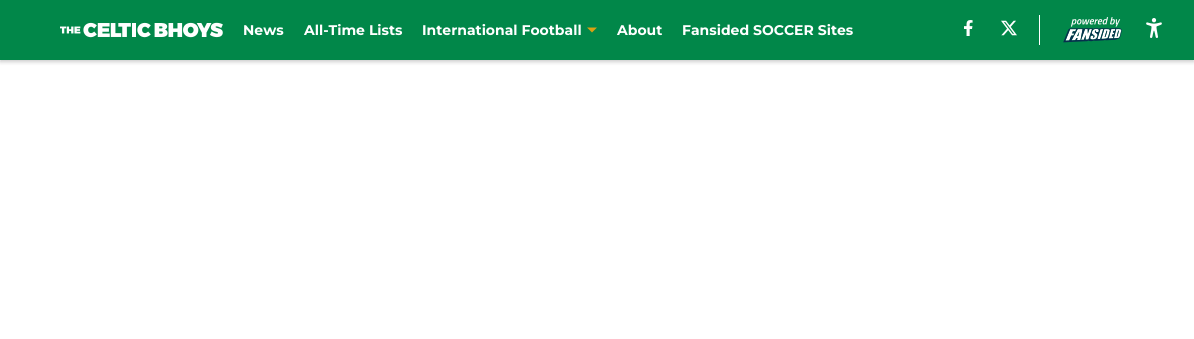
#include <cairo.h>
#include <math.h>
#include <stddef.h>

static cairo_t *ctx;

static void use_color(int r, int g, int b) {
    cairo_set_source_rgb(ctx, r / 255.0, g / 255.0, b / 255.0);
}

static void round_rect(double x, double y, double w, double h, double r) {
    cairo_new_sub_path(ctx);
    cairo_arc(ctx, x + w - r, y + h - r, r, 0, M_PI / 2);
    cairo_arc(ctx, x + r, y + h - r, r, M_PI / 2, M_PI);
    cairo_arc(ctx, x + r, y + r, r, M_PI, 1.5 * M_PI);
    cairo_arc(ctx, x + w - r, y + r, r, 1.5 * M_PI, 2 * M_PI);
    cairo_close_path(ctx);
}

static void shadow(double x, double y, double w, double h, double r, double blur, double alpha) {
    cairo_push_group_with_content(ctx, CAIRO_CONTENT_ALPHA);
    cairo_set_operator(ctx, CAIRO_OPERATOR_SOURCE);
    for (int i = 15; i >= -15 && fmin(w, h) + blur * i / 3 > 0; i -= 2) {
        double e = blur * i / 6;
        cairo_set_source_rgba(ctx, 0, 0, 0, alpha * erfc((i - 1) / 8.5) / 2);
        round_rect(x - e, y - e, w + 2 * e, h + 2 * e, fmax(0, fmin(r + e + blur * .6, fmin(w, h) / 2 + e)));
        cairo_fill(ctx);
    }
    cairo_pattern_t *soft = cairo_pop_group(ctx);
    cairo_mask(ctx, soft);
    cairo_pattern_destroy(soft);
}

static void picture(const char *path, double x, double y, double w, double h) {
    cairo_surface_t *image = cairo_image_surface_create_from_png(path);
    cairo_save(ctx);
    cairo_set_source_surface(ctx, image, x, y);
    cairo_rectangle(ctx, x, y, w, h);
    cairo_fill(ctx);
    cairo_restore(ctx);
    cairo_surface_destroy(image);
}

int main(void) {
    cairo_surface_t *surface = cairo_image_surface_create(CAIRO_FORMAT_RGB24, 1194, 339);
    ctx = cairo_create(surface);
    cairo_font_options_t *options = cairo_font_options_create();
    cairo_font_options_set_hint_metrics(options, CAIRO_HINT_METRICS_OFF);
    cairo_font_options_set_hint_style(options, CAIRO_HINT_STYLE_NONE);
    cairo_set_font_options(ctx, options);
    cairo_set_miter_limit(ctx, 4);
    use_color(255, 255, 255);
    cairo_paint(ctx);
    use_color(0, 0, 0);
    shadow(0, 2, 1194, 60, 0, 2, 0.2);
    use_color(1, 135, 73);
    cairo_rectangle(ctx, 0, 0, 1194, 60);
    cairo_fill(ctx);
    picture("img1.png", 60, 22, 163, 16);
    cairo_select_font_face(ctx, "Montserrat Thin", CAIRO_FONT_SLANT_NORMAL, CAIRO_FONT_WEIGHT_NORMAL);
    cairo_set_font_size(ctx, 14);
    use_color(255, 255, 255);
    cairo_move_to(ctx, 243, 35);
    cairo_show_text(ctx, "News");
    cairo_move_to(ctx, 304, 35);
    cairo_show_text(ctx, "All-Time Lists");
    cairo_move_to(ctx, 422, 35);
    cairo_show_text(ctx, "International Football");
    use_color(219, 161, 17);
    cairo_set_fill_rule(ctx, CAIRO_FILL_RULE_EVEN_ODD);
    cairo_new_path(ctx);
    cairo_move_to(ctx, 587, 27.5);
    cairo_line_to(ctx, 592, 32.5);
    cairo_line_to(ctx, 597, 27.5);
    cairo_close_path(ctx);
    cairo_fill(ctx);
    use_color(255, 255, 255);
    cairo_move_to(ctx, 617, 35);
    cairo_show_text(ctx, "About");
    cairo_move_to(ctx, 682, 35);
    cairo_show_text(ctx, "Fansided SOCCER Sites");
    picture("img2.png", 964, 20, 9, 16);
    picture("img3.png", 1001, 20, 16, 16);
    cairo_rectangle(ctx, 1039, 15, 1, 30);
    cairo_fill(ctx);
    picture("img4.png", 1063, 17, 59, 26);
    picture("img5.png", 1146, 18, 16, 20);
    cairo_surface_write_to_png(surface, "result.png");
    cairo_font_options_destroy(options);
    cairo_destroy(ctx);
    cairo_surface_destroy(surface);
    return 0;
}
